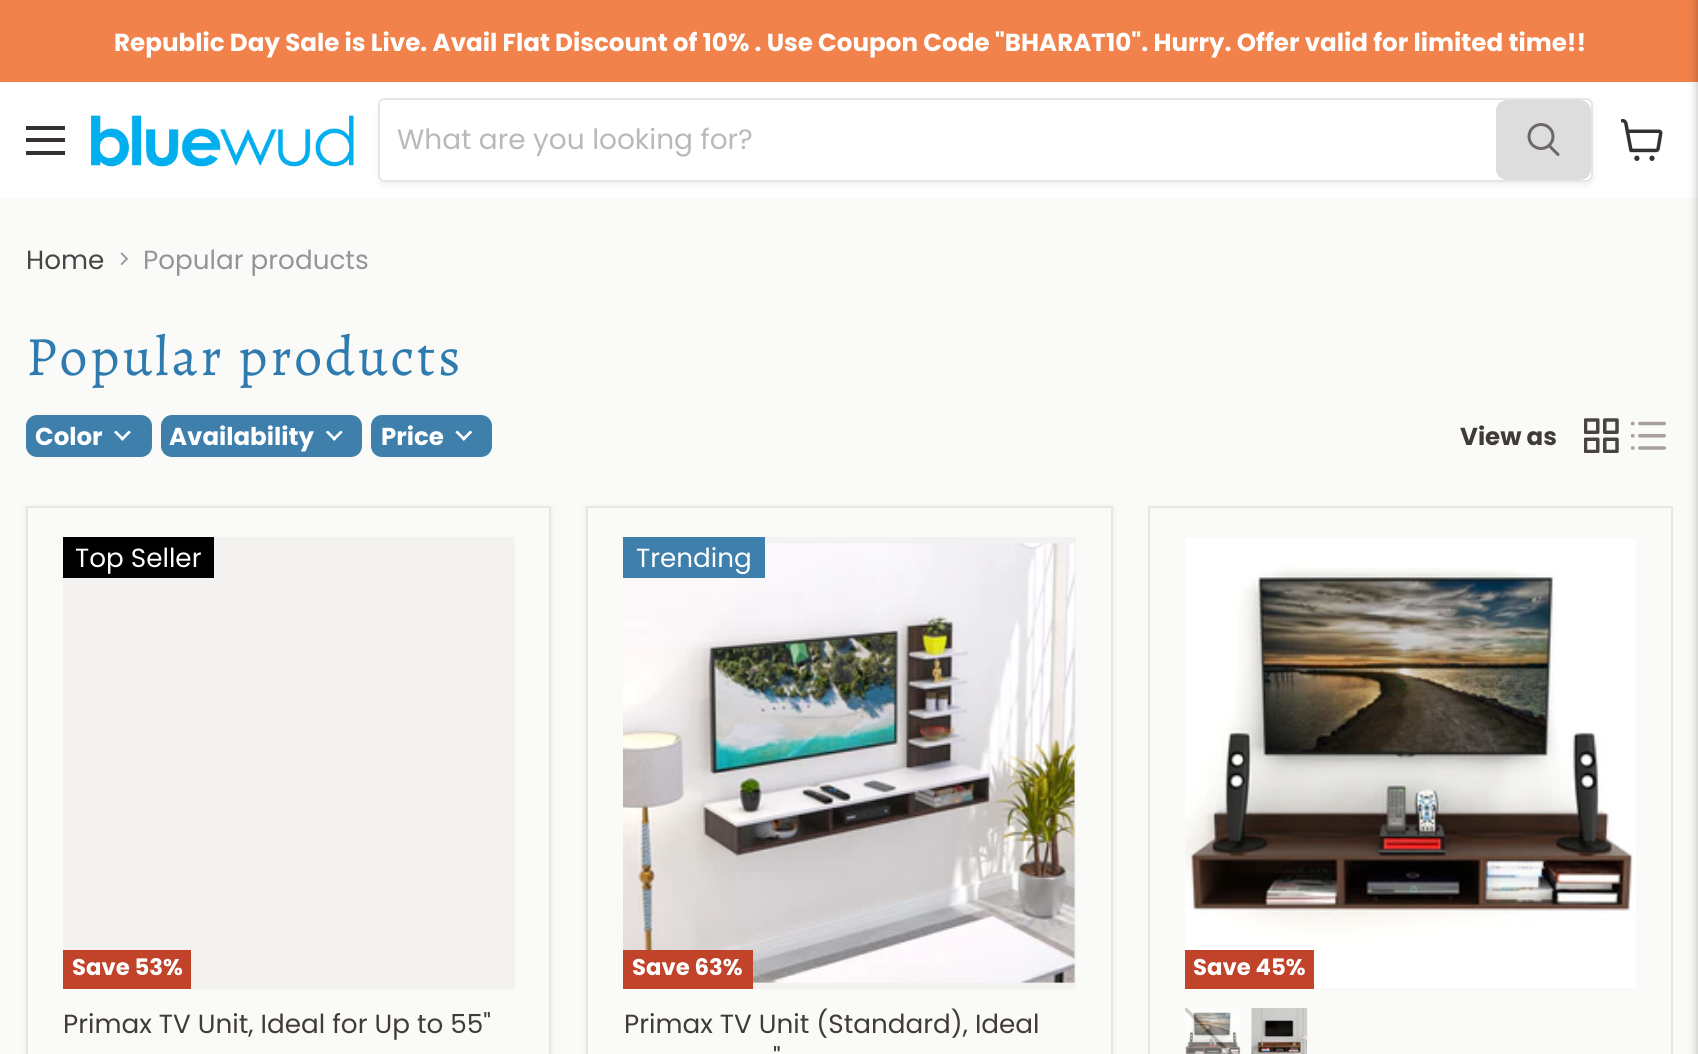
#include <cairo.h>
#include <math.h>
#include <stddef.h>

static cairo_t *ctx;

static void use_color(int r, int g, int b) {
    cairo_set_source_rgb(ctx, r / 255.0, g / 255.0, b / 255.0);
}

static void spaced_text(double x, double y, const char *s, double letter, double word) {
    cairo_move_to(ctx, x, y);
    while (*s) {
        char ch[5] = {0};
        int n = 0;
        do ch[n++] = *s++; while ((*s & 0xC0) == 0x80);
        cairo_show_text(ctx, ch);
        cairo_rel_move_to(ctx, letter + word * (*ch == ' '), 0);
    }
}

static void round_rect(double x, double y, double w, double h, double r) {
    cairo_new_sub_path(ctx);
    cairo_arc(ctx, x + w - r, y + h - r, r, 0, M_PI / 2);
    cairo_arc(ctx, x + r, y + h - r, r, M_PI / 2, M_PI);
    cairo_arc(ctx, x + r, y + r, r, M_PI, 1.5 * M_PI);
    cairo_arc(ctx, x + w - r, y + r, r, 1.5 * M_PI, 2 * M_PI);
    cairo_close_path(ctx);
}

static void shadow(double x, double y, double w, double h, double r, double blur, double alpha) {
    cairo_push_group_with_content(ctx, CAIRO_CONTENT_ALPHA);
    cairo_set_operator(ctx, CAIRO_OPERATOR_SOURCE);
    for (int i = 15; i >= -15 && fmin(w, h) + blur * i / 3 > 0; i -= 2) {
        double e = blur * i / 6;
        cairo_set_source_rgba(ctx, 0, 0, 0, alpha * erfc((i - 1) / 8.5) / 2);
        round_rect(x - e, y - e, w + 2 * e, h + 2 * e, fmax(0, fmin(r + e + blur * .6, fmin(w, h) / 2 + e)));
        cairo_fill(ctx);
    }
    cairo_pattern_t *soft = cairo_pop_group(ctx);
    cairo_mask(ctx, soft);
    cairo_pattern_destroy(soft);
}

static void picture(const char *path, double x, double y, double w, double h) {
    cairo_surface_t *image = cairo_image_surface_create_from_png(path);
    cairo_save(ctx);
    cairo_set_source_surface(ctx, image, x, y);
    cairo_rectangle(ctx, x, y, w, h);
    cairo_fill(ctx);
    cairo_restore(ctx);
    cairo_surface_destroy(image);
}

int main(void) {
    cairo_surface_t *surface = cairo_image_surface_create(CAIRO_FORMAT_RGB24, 1698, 1054);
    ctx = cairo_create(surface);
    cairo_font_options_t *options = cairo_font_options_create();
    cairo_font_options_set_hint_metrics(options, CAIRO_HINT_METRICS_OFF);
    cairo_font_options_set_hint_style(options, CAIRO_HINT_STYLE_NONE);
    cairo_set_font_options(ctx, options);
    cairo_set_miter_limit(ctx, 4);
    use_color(250, 250, 248);
    cairo_paint(ctx);
    use_color(242, 130, 76);
    cairo_rectangle(ctx, 0, 0, 1698, 82);
    cairo_fill(ctx);
    cairo_select_font_face(ctx, "Poppins", CAIRO_FONT_SLANT_NORMAL, CAIRO_FONT_WEIGHT_BOLD);
    cairo_set_font_size(ctx, 24.6);
    use_color(255, 255, 255);
    cairo_move_to(ctx, 114, 51);
    cairo_show_text(ctx, "Republic Day Sale is Live. Avail Flat Discount of 10% . Use Coupon Code \"BHARAT10\". Hurry. Offer valid for limited time!!");
    cairo_rectangle(ctx, 0, 82, 1698, 116);
    cairo_fill(ctx);
    use_color(0, 0, 0);
    shadow(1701, 0, 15, 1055, 0, 6, 0.5);
    use_color(53, 49, 48);
    cairo_rectangle(ctx, 26, 126, 39, 4);
    cairo_fill(ctx);
    cairo_rectangle(ctx, 26, 138, 39, 4);
    cairo_fill(ctx);
    cairo_rectangle(ctx, 26, 151, 39, 4);
    cairo_fill(ctx);
    picture("img1.png", 91, 115, 263, 52);
    cairo_save(ctx);
    cairo_set_fill_rule(ctx, CAIRO_FILL_RULE_EVEN_ODD);
    cairo_new_path(ctx);
    cairo_move_to(ctx, 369, 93);
    cairo_line_to(ctx, 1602, 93);
    cairo_line_to(ctx, 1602, 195);
    cairo_line_to(ctx, 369, 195);
    cairo_close_path(ctx);
    cairo_move_to(ctx, 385, 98);
    cairo_line_to(ctx, 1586, 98);
    cairo_curve_to(ctx, 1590, 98, 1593, 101, 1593, 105);
    cairo_line_to(ctx, 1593, 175);
    cairo_curve_to(ctx, 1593, 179, 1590, 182, 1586, 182);
    cairo_line_to(ctx, 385, 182);
    cairo_curve_to(ctx, 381, 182, 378, 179, 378, 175);
    cairo_line_to(ctx, 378, 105);
    cairo_curve_to(ctx, 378, 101, 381, 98, 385, 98);
    cairo_close_path(ctx);
    cairo_clip(ctx);
    use_color(125, 125, 124);
    shadow(378, 102, 1215, 84, 7, 2.5, 0.11);
    cairo_restore(ctx);
    round_rect(379, 99, 1213, 82, 6);
    cairo_set_source_rgba(ctx, 0.49, 0.49, 0.486, 0.2);
    cairo_stroke(ctx);
    use_color(255, 255, 255);
    cairo_new_path(ctx);
    cairo_move_to(ctx, 385, 100);
    cairo_line_to(ctx, 1496, 100);
    cairo_line_to(ctx, 1496, 180);
    cairo_line_to(ctx, 385, 180);
    cairo_curve_to(ctx, 382, 180, 380, 178, 380, 175);
    cairo_line_to(ctx, 380, 105);
    cairo_curve_to(ctx, 380, 102, 382, 100, 385, 100);
    cairo_close_path(ctx);
    cairo_fill(ctx);
    cairo_select_font_face(ctx, "Poppins", CAIRO_FONT_SLANT_NORMAL, CAIRO_FONT_WEIGHT_NORMAL);
    cairo_set_font_size(ctx, 28);
    use_color(186, 185, 185);
    cairo_move_to(ctx, 397, 149);
    cairo_show_text(ctx, "What are you looking for?");
    use_color(221, 221, 221);
    round_rect(1497, 101, 93, 78, 10);
    cairo_fill_preserve(ctx);
    cairo_stroke(ctx);
    cairo_new_path(ctx);
    cairo_move_to(ctx, 1558, 154.5);
    cairo_line_to(ctx, 1549.5, 146);
    use_color(109, 103, 103);
    cairo_set_line_width(ctx, 3);
    cairo_set_line_cap(ctx, CAIRO_LINE_CAP_ROUND);
    cairo_stroke(ctx);
    cairo_arc(ctx, 1541, 136.5, 12, 0, 2 * M_PI);
    cairo_set_line_cap(ctx, CAIRO_LINE_CAP_BUTT);
    cairo_stroke(ctx);
    picture("img2.png", 1621, 119, 42, 42);
    cairo_set_font_size(ctx, 26.25);
    use_color(72, 68, 68);
    cairo_move_to(ctx, 26, 269);
    cairo_show_text(ctx, "Home");
    picture("img3.png", 120, 252, 8, 14);
    use_color(148, 148, 148);
    cairo_move_to(ctx, 143, 269);
    cairo_show_text(ctx, "Popular products");
    cairo_select_font_face(ctx, "Alegreya", CAIRO_FONT_SLANT_NORMAL, CAIRO_FONT_WEIGHT_NORMAL);
    cairo_set_font_size(ctx, 55.75);
    use_color(46, 124, 175);
    spaced_text(26, 375, "Popular products", 2.75, 0);
    use_color(63, 127, 171);
    round_rect(26, 415, 126, 42, 11);
    cairo_fill(ctx);
    cairo_select_font_face(ctx, "Poppins", CAIRO_FONT_SLANT_NORMAL, CAIRO_FONT_WEIGHT_BOLD);
    cairo_set_font_size(ctx, 24.5);
    use_color(255, 255, 255);
    cairo_move_to(ctx, 35, 445);
    cairo_show_text(ctx, "Color");
    picture("img4.png", 114, 431, 17, 10);
    use_color(63, 127, 171);
    round_rect(161, 415, 201, 42, 11);
    cairo_fill(ctx);
    use_color(255, 255, 255);
    cairo_move_to(ctx, 169, 445);
    cairo_show_text(ctx, "Availability");
    picture("img5.png", 326, 431, 17, 10);
    use_color(63, 127, 171);
    round_rect(371, 415, 121, 42, 11);
    cairo_fill(ctx);
    use_color(255, 255, 255);
    cairo_move_to(ctx, 381, 445);
    cairo_show_text(ctx, "Price");
    picture("img6.png", 455, 431, 18, 10);
    use_color(64, 59, 57);
    cairo_move_to(ctx, 1460, 445);
    cairo_show_text(ctx, "View as");
    picture("img7.png", 1584, 418, 35, 35);
    picture("img8.png", 1631, 421, 35, 29);
    use_color(125, 125, 124);
    shadow(26, 508, 525, 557, 0, 3.5, 0.11);
    use_color(250, 250, 248);
    cairo_rectangle(ctx, 27, 507, 523, 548);
    cairo_fill_preserve(ctx);
    use_color(230, 230, 228);
    cairo_set_line_width(ctx, 2);
    cairo_stroke(ctx);
    use_color(243, 242, 240);
    cairo_rectangle(ctx, 63, 537, 452, 452);
    cairo_fill(ctx);
    use_color(0, 0, 0);
    cairo_rectangle(ctx, 63, 537, 151, 41);
    cairo_fill(ctx);
    cairo_select_font_face(ctx, "Poppins", CAIRO_FONT_SLANT_NORMAL, CAIRO_FONT_WEIGHT_NORMAL);
    cairo_set_font_size(ctx, 26.25);
    use_color(255, 255, 255);
    cairo_move_to(ctx, 75, 567);
    cairo_show_text(ctx, "Top Seller");
    use_color(192, 67, 42);
    cairo_rectangle(ctx, 63, 950, 128, 39);
    cairo_fill(ctx);
    cairo_select_font_face(ctx, "Poppins", CAIRO_FONT_SLANT_NORMAL, CAIRO_FONT_WEIGHT_BOLD);
    cairo_set_font_size(ctx, 22.75);
    use_color(255, 255, 255);
    cairo_move_to(ctx, 72, 975);
    cairo_show_text(ctx, "Save 53%");
    cairo_select_font_face(ctx, "Poppins", CAIRO_FONT_SLANT_NORMAL, CAIRO_FONT_WEIGHT_NORMAL);
    cairo_set_font_size(ctx, 26.25);
    use_color(64, 59, 57);
    cairo_move_to(ctx, 63, 1033);
    cairo_show_text(ctx, "Primax TV Unit, Ideal for Up to 55\"");
    use_color(125, 125, 124);
    shadow(586, 508, 527, 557, 0, 3.5, 0.11);
    use_color(250, 250, 248);
    cairo_rectangle(ctx, 587, 507, 525, 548);
    cairo_fill_preserve(ctx);
    use_color(230, 230, 228);
    cairo_stroke(ctx);
    use_color(243, 242, 240);
    cairo_rectangle(ctx, 753, 537, 323, 452);
    cairo_fill(ctx);
    picture("img9.png", 623, 543, 452, 440);
    use_color(63, 127, 171);
    cairo_rectangle(ctx, 623, 537, 142, 41);
    cairo_fill(ctx);
    use_color(255, 255, 255);
    cairo_move_to(ctx, 636, 567);
    cairo_show_text(ctx, "Trending");
    use_color(192, 67, 42);
    cairo_rectangle(ctx, 623, 950, 130, 39);
    cairo_fill(ctx);
    cairo_select_font_face(ctx, "Poppins", CAIRO_FONT_SLANT_NORMAL, CAIRO_FONT_WEIGHT_BOLD);
    cairo_set_font_size(ctx, 22.75);
    use_color(255, 255, 255);
    cairo_move_to(ctx, 632, 975);
    cairo_show_text(ctx, "Save 63%");
    cairo_select_font_face(ctx, "Poppins", CAIRO_FONT_SLANT_NORMAL, CAIRO_FONT_WEIGHT_NORMAL);
    cairo_set_font_size(ctx, 26.25);
    use_color(64, 59, 57);
    cairo_move_to(ctx, 624, 1033);
    cairo_show_text(ctx, "Primax TV Unit (Standard), Ideal");
    cairo_move_to(ctx, 773, 1067);
    cairo_show_text(ctx, "\"");
    cairo_rectangle(ctx, 1149, 507, 523, 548);
    use_color(230, 230, 228);
    cairo_stroke(ctx);
    use_color(243, 242, 240);
    cairo_rectangle(ctx, 1185, 537, 451, 452);
    cairo_fill(ctx);
    picture("img10.png", 1185, 537, 451, 452);
    use_color(192, 67, 42);
    cairo_rectangle(ctx, 1185, 950, 129, 39);
    cairo_fill(ctx);
    cairo_select_font_face(ctx, "Poppins", CAIRO_FONT_SLANT_NORMAL, CAIRO_FONT_WEIGHT_BOLD);
    cairo_set_font_size(ctx, 22.75);
    use_color(255, 255, 255);
    cairo_move_to(ctx, 1193, 975);
    cairo_show_text(ctx, "Save 45%");
    picture("img11.png", 1185, 1008, 48, 46);
    picture("img12.png", 1185, 1008, 56, 46);
    picture("img13.png", 1251, 1008, 57, 46);
    cairo_surface_write_to_png(surface, "result.png");
    cairo_font_options_destroy(options);
    cairo_destroy(ctx);
    cairo_surface_destroy(surface);
    return 0;
}
